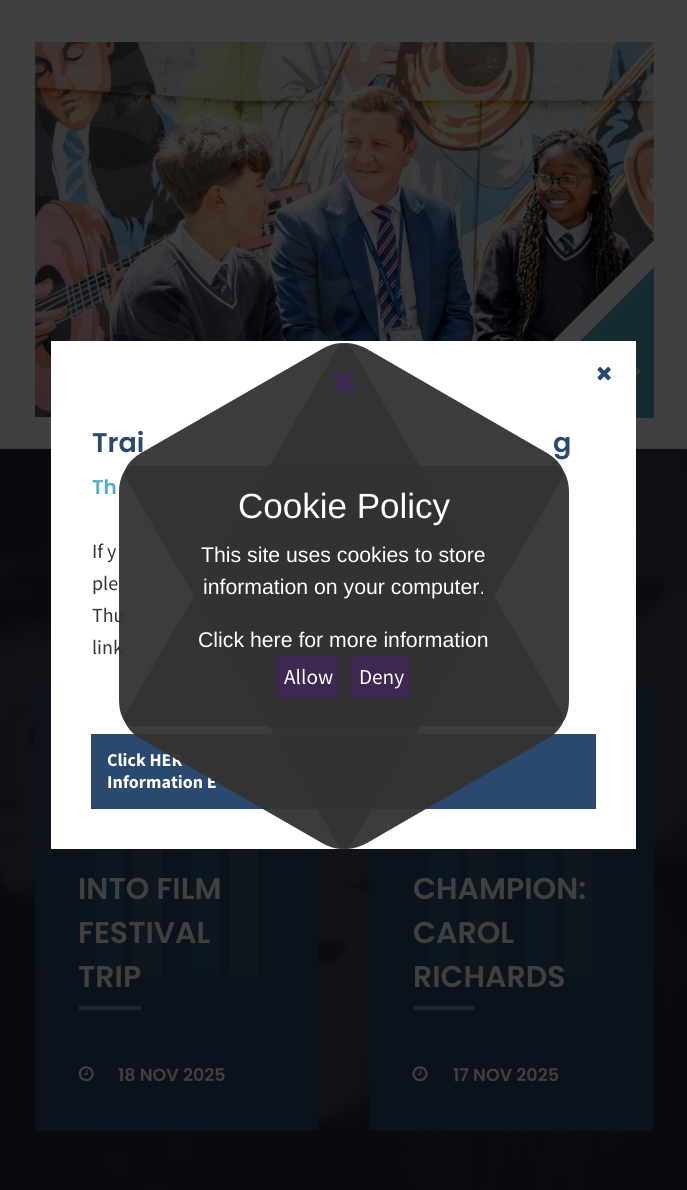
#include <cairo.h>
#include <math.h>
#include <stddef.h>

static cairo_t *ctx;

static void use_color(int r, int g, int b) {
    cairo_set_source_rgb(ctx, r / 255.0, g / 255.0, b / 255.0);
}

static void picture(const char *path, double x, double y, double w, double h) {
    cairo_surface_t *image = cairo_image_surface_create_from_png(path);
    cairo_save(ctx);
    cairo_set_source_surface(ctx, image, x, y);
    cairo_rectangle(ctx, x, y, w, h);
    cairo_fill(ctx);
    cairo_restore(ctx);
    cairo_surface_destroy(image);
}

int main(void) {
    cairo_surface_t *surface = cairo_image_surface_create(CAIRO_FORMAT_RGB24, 687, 1190);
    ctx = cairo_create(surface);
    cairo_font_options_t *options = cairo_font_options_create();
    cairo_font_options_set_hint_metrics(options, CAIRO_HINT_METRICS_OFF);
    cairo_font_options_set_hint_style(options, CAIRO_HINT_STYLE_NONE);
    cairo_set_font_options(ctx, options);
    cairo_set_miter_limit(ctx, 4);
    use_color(64, 64, 64);
    cairo_paint(ctx);
    picture("img1.png", 35, 42, 619, 375);
    picture("img2.png", 35, 43, 350, 374);
    cairo_save(ctx);
    cairo_rectangle(ctx, 35, 43, 619, 375);
    cairo_clip(ctx);
    use_color(64, 64, 64);
    cairo_new_path(ctx);
    cairo_move_to(ctx, 653, 241);
    cairo_line_to(ctx, 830, 418);
    cairo_line_to(ctx, 653, 595);
    cairo_line_to(ctx, 476, 418);
    cairo_close_path(ctx);
    cairo_fill(ctx);
    use_color(22, 43, 49);
    cairo_new_path(ctx);
    cairo_move_to(ctx, 666, 255);
    cairo_line_to(ctx, 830, 418);
    cairo_line_to(ctx, 653, 595);
    cairo_line_to(ctx, 490, 431);
    cairo_close_path(ctx);
    cairo_fill(ctx);
    cairo_restore(ctx);
    picture("img3.png", 636, 367, 4, 9);
    use_color(9, 12, 16);
    cairo_rectangle(ctx, 0, 449, 687, 741);
    cairo_fill(ctx);
    picture("img5.png", 0, 448, 687, 742);
    use_color(11, 18, 28);
    cairo_rectangle(ctx, 35, 681, 284, 450);
    cairo_fill(ctx);
    picture("img6.png", 43, 680, 270, 301);
    cairo_rectangle(ctx, 369, 681, 285, 450);
    cairo_fill(ctx);
    picture("img8.png", 368, 680, 276, 451);
    use_color(255, 255, 255);
    cairo_rectangle(ctx, 51, 341, 585, 508);
    cairo_fill(ctx);
    picture("img4.png", 597, 367, 14, 14);
    cairo_select_font_face(ctx, "Poppins SemiBold", CAIRO_FONT_SLANT_NORMAL, CAIRO_FONT_WEIGHT_NORMAL);
    cairo_set_font_size(ctx, 27);
    use_color(43, 73, 111);
    cairo_move_to(ctx, 92, 452);
    cairo_show_text(ctx, "Trai");
    cairo_move_to(ctx, 553, 452);
    cairo_show_text(ctx, "g");
    cairo_set_font_size(ctx, 20);
    use_color(87, 173, 194);
    cairo_move_to(ctx, 92, 494);
    cairo_show_text(ctx, "Th");
    cairo_select_font_face(ctx, "Source Sans Pro", CAIRO_FONT_SLANT_NORMAL, CAIRO_FONT_WEIGHT_NORMAL);
    use_color(52, 52, 52);
    cairo_move_to(ctx, 92, 558);
    cairo_show_text(ctx, "If y");
    cairo_move_to(ctx, 92, 590);
    cairo_show_text(ctx, "ple");
    cairo_move_to(ctx, 92, 622);
    cairo_show_text(ctx, "Thu");
    cairo_move_to(ctx, 92, 654);
    cairo_show_text(ctx, "link");
    use_color(43, 73, 111);
    cairo_rectangle(ctx, 91, 734, 505, 75);
    cairo_fill(ctx);
    cairo_select_font_face(ctx, "Source Sans Pro", CAIRO_FONT_SLANT_NORMAL, CAIRO_FONT_WEIGHT_BOLD);
    cairo_set_font_size(ctx, 18);
    use_color(255, 255, 255);
    cairo_move_to(ctx, 107, 766);
    cairo_show_text(ctx, "Click HER");
    cairo_move_to(ctx, 107, 788);
    cairo_show_text(ctx, "Information E");
    cairo_select_font_face(ctx, "Poppins SemiBold", CAIRO_FONT_SLANT_NORMAL, CAIRO_FONT_WEIGHT_NORMAL);
    cairo_set_font_size(ctx, 30);
    use_color(64, 64, 64);
    cairo_move_to(ctx, 78, 899);
    cairo_show_text(ctx, "INTO FILM");
    cairo_move_to(ctx, 78, 943);
    cairo_show_text(ctx, "FESTIVAL");
    cairo_move_to(ctx, 78, 987);
    cairo_show_text(ctx, "TRIP");
    use_color(22, 43, 49);
    cairo_rectangle(ctx, 79, 1006, 62, 4);
    cairo_fill(ctx);
    picture("img7.png", 78, 1066, 16, 16);
    cairo_set_font_size(ctx, 17.5);
    use_color(64, 64, 64);
    cairo_move_to(ctx, 118, 1081);
    cairo_show_text(ctx, "18 NOV 2025");
    cairo_set_font_size(ctx, 30);
    cairo_move_to(ctx, 413, 899);
    cairo_show_text(ctx, "CHAMPION:");
    cairo_move_to(ctx, 413, 943);
    cairo_show_text(ctx, "CAROL");
    cairo_move_to(ctx, 413, 987);
    cairo_show_text(ctx, "RICHARDS");
    use_color(22, 43, 49);
    cairo_rectangle(ctx, 413, 1006, 62, 4);
    cairo_fill(ctx);
    picture("img9.png", 412, 1066, 16, 16);
    cairo_set_font_size(ctx, 17.5);
    use_color(64, 64, 64);
    cairo_move_to(ctx, 453, 1081);
    cairo_show_text(ctx, "17 NOV 2025");
    cairo_set_source_rgba(ctx, 0.2, 0.2, 0.2, 0.95);
    cairo_new_path(ctx);
    cairo_move_to(ctx, 569, 492);
    cairo_line_to(ctx, 569, 700);
    cairo_curve_to(ctx, 569, 715, 563, 726, 556, 726);
    cairo_line_to(ctx, 132, 726);
    cairo_curve_to(ctx, 125, 726, 119, 715, 119, 700);
    cairo_line_to(ctx, 119, 492);
    cairo_curve_to(ctx, 119, 478, 125, 466, 132, 466);
    cairo_line_to(ctx, 556, 466);
    cairo_curve_to(ctx, 563, 466, 569, 478, 569, 492);
    cairo_close_path(ctx);
    cairo_fill(ctx);
    cairo_new_path(ctx);
    cairo_move_to(ctx, 547, 739);
    cairo_line_to(ctx, 367, 843);
    cairo_curve_to(ctx, 354, 850, 341, 851, 338, 845);
    cairo_line_to(ctx, 125, 477);
    cairo_curve_to(ctx, 122, 471, 129, 460, 141, 453);
    cairo_line_to(ctx, 322, 349);
    cairo_curve_to(ctx, 334, 342, 347, 341, 351, 347);
    cairo_line_to(ctx, 563, 715);
    cairo_curve_to(ctx, 566, 721, 559, 732, 547, 739);
    cairo_close_path(ctx);
    cairo_fill(ctx);
    cairo_new_path(ctx);
    cairo_move_to(ctx, 367, 349);
    cairo_line_to(ctx, 547, 453);
    cairo_curve_to(ctx, 559, 460, 566, 471, 563, 477);
    cairo_line_to(ctx, 351, 845);
    cairo_curve_to(ctx, 347, 851, 334, 850, 322, 843);
    cairo_line_to(ctx, 141, 739);
    cairo_curve_to(ctx, 129, 732, 122, 721, 125, 715);
    cairo_line_to(ctx, 338, 347);
    cairo_curve_to(ctx, 341, 341, 354, 342, 367, 349);
    cairo_close_path(ctx);
    cairo_fill(ctx);
    picture("img10.png", 332, 371, 23, 23);
    cairo_select_font_face(ctx, "Liberation Sans", CAIRO_FONT_SLANT_NORMAL, CAIRO_FONT_WEIGHT_NORMAL);
    cairo_set_font_size(ctx, 35);
    use_color(255, 255, 255);
    cairo_move_to(ctx, 238, 518);
    cairo_show_text(ctx, "Cookie Policy");
    cairo_set_font_size(ctx, 21.25);
    cairo_move_to(ctx, 201, 562);
    cairo_show_text(ctx, "This site uses cookies to store");
    cairo_move_to(ctx, 203, 594);
    cairo_show_text(ctx, "information on your computer.");
    cairo_move_to(ctx, 198, 647);
    cairo_show_text(ctx, "Click here for more information");
    use_color(61, 40, 82);
    cairo_rectangle(ctx, 276, 656, 63, 42);
    cairo_fill(ctx);
    cairo_select_font_face(ctx, "Source Sans Pro", CAIRO_FONT_SLANT_NORMAL, CAIRO_FONT_WEIGHT_NORMAL);
    use_color(255, 255, 255);
    cairo_move_to(ctx, 284, 684);
    cairo_show_text(ctx, "Allow");
    use_color(61, 40, 82);
    cairo_rectangle(ctx, 351, 656, 59, 42);
    cairo_fill(ctx);
    use_color(255, 255, 255);
    cairo_move_to(ctx, 359, 684);
    cairo_show_text(ctx, "Deny");
    cairo_surface_write_to_png(surface, "result.png");
    cairo_font_options_destroy(options);
    cairo_destroy(ctx);
    cairo_surface_destroy(surface);
    return 0;
}
